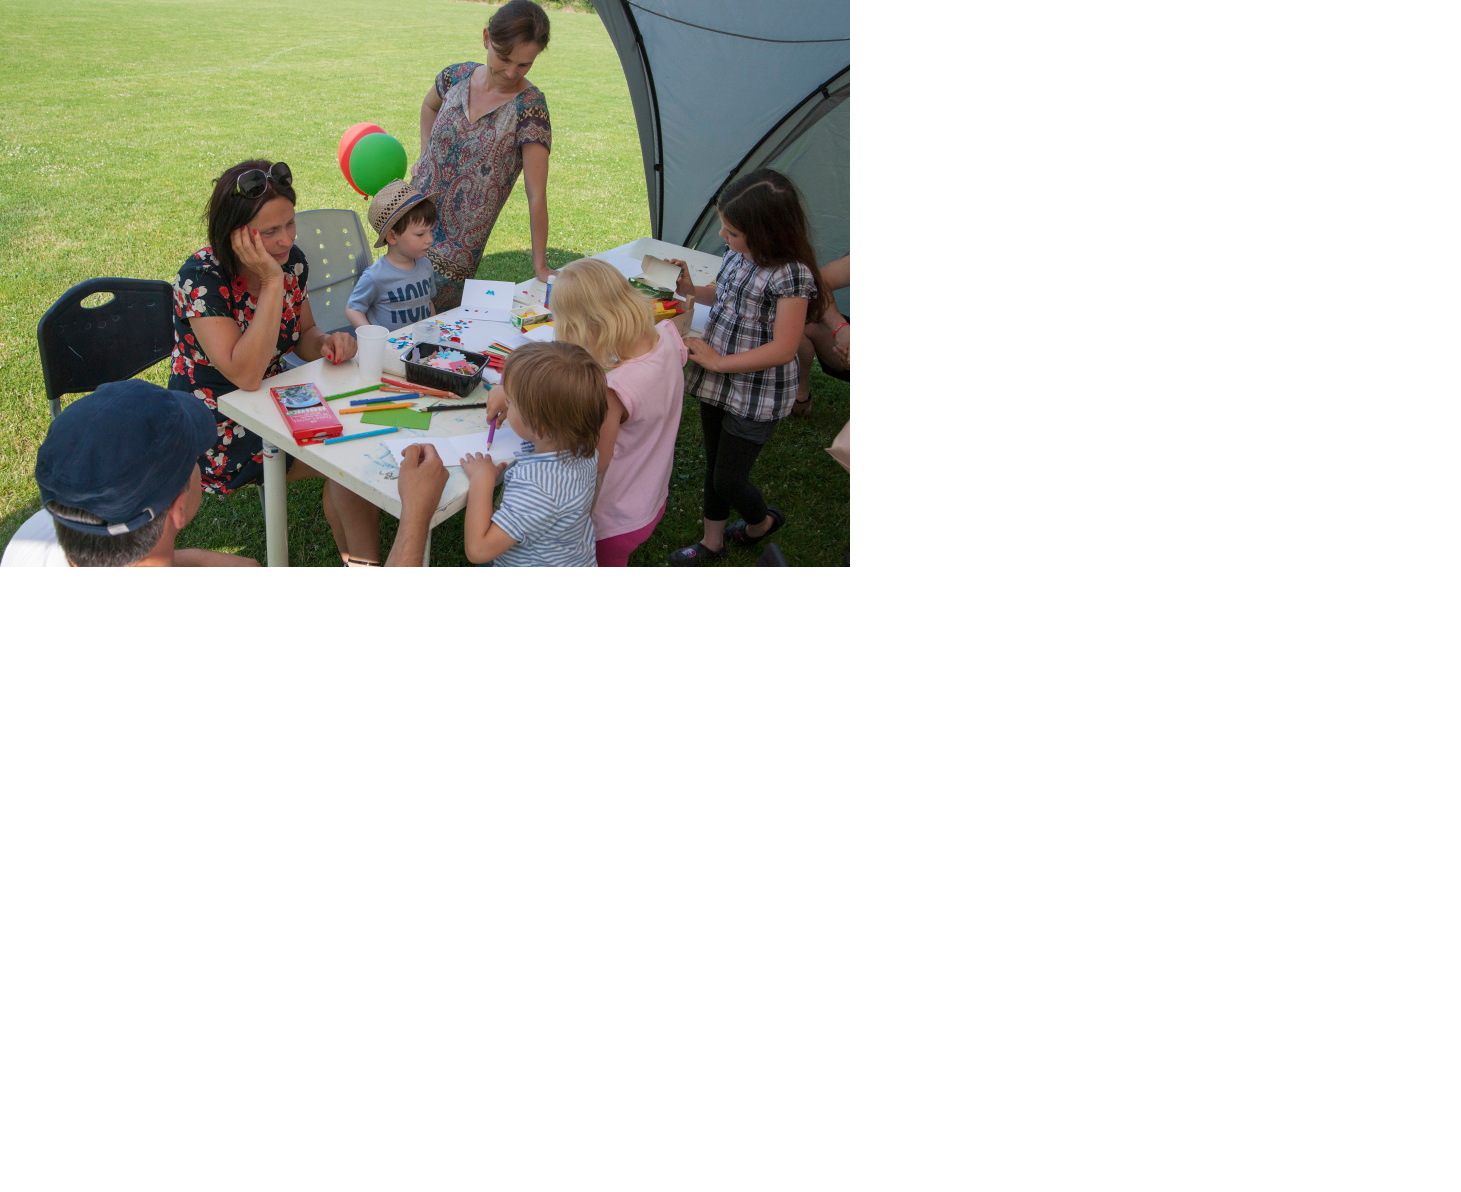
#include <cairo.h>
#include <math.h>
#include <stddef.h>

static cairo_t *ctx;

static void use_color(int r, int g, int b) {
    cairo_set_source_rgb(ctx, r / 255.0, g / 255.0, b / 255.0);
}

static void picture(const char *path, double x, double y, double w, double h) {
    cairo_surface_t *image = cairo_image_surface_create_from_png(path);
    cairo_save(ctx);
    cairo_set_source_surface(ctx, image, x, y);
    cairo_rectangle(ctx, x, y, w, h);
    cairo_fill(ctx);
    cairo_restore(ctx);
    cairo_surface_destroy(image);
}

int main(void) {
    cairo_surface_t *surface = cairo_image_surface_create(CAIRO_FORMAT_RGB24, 1461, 1192);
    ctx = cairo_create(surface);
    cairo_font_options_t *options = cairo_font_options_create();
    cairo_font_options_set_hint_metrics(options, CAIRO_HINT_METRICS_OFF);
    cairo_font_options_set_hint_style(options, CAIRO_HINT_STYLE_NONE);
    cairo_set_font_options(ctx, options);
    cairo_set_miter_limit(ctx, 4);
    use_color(255, 255, 255);
    cairo_paint(ctx);
    picture("img1.png", 0, 0, 850, 567);
    cairo_surface_write_to_png(surface, "result.png");
    cairo_font_options_destroy(options);
    cairo_destroy(ctx);
    cairo_surface_destroy(surface);
    return 0;
}
